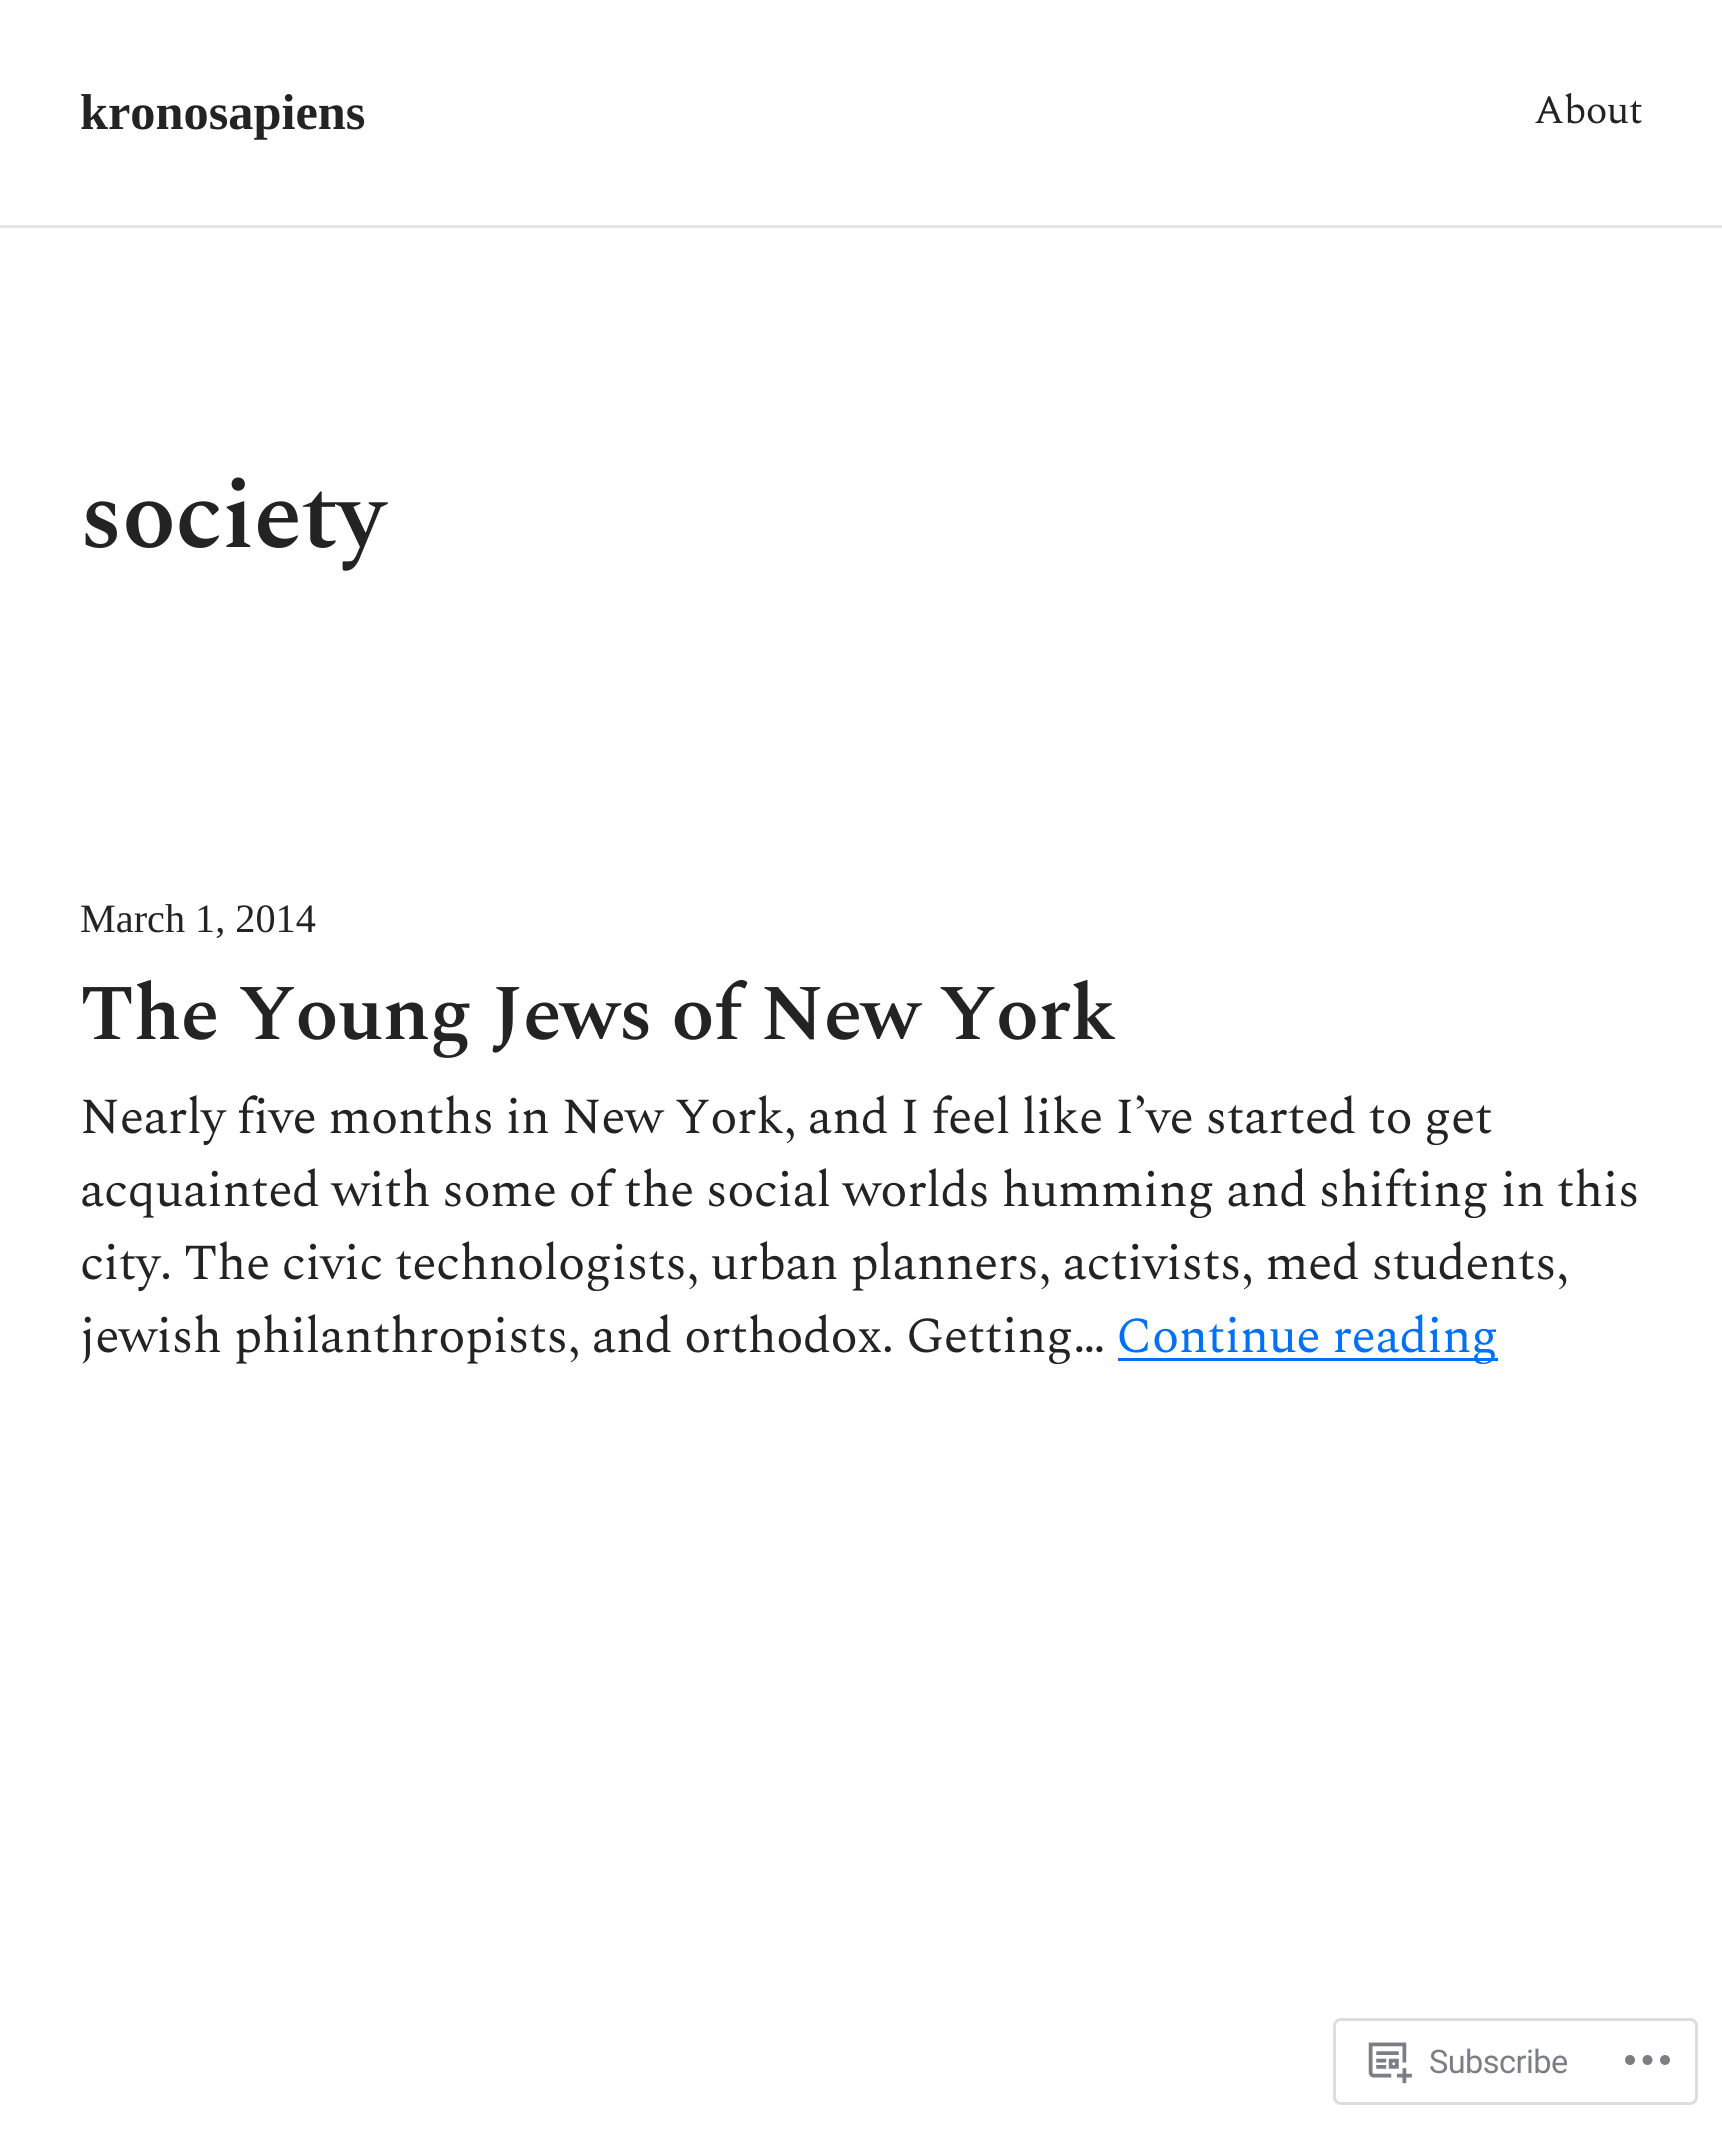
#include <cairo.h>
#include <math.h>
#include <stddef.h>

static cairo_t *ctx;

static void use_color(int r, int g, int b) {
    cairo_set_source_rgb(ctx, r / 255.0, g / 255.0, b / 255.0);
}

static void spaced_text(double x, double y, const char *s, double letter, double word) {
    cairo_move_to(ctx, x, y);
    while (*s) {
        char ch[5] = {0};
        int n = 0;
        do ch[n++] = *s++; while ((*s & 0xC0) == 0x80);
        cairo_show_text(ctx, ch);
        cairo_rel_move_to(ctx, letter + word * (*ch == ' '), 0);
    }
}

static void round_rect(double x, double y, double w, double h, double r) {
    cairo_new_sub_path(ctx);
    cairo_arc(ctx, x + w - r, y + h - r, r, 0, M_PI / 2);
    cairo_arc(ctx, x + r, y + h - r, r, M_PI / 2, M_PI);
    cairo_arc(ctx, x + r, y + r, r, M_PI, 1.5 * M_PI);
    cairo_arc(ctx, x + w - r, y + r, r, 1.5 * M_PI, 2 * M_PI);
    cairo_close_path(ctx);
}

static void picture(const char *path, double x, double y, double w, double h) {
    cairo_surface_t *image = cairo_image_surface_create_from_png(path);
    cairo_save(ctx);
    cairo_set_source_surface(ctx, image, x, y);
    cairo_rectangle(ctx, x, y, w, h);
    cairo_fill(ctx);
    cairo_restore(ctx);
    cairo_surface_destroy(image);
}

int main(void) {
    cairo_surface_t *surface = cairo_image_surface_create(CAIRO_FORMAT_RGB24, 1722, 2129);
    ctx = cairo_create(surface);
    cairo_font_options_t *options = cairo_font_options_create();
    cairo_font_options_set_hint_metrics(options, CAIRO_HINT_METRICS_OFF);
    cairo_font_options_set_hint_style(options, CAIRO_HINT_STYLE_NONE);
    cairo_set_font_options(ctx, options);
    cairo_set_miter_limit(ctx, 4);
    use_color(255, 255, 255);
    cairo_paint(ctx);
    use_color(229, 229, 229);
    cairo_rectangle(ctx, 0, 225, 1722, 3);
    cairo_fill(ctx);
    cairo_select_font_face(ctx, "Liberation Serif", CAIRO_FONT_SLANT_NORMAL, CAIRO_FONT_WEIGHT_BOLD);
    cairo_set_font_size(ctx, 50.35);
    use_color(35, 35, 35);
    cairo_move_to(ctx, 80, 129);
    cairo_show_text(ctx, "kronosapiens");
    cairo_select_font_face(ctx, "Spectral", CAIRO_FONT_SLANT_NORMAL, CAIRO_FONT_WEIGHT_NORMAL);
    cairo_set_font_size(ctx, 40.25);
    spaced_text(1534, 123, "About", -0.55, 0);
    cairo_select_font_face(ctx, "Spectral SemiBold", CAIRO_FONT_SLANT_NORMAL, CAIRO_FONT_WEIGHT_NORMAL);
    cairo_set_font_size(ctx, 98.5);
    spaced_text(80, 547, "society", -0.55, 0);
    cairo_select_font_face(ctx, "Liberation Serif", CAIRO_FONT_SLANT_NORMAL, CAIRO_FONT_WEIGHT_NORMAL);
    cairo_set_font_size(ctx, 40.25);
    cairo_move_to(ctx, 80, 932);
    cairo_show_text(ctx, "March 1, 2014");
    cairo_select_font_face(ctx, "Spectral SemiBold", CAIRO_FONT_SLANT_NORMAL, CAIRO_FONT_WEIGHT_NORMAL);
    cairo_set_font_size(ctx, 78.7);
    spaced_text(80, 1039, "The Young Jews of New York", -0.55, 0);
    cairo_select_font_face(ctx, "Spectral", CAIRO_FONT_SLANT_NORMAL, CAIRO_FONT_WEIGHT_NORMAL);
    cairo_set_font_size(ctx, 50.35);
    spaced_text(80, 1133, "Nearly five months in New York, and I feel like I’ve started to get", -0.55, 0);
    spaced_text(80, 1206, "acquainted with some of the social worlds humming and shifting in this", -0.55, 0);
    spaced_text(80, 1279, "city. The civic technologists, urban planners, activists, med students,", -0.55, 0);
    spaced_text(80, 1352, "jewish philanthropists, and orthodox. Getting…", -0.55, 0);
    use_color(0, 112, 246);
    cairo_rectangle(ctx, 1118, 1358, 380, 3);
    cairo_fill(ctx);
    spaced_text(1116, 1352, "Continue reading", -0.55, 0);
    round_rect(1334.5, 2019.5, 362, 84, 6.5);
    use_color(221, 221, 223);
    cairo_set_line_width(ctx, 3);
    cairo_stroke(ctx);
    picture("img1.png", 1368, 2042, 44, 42);
    cairo_select_font_face(ctx, "Roboto", CAIRO_FONT_SLANT_NORMAL, CAIRO_FONT_WEIGHT_NORMAL);
    cairo_set_font_size(ctx, 32.5);
    use_color(123, 127, 133);
    spaced_text(1429, 2073, "Subscribe", -0.55, 0);
    picture("img2.png", 1625, 2055, 45, 10);
    cairo_surface_write_to_png(surface, "result.png");
    cairo_font_options_destroy(options);
    cairo_destroy(ctx);
    cairo_surface_destroy(surface);
    return 0;
}
